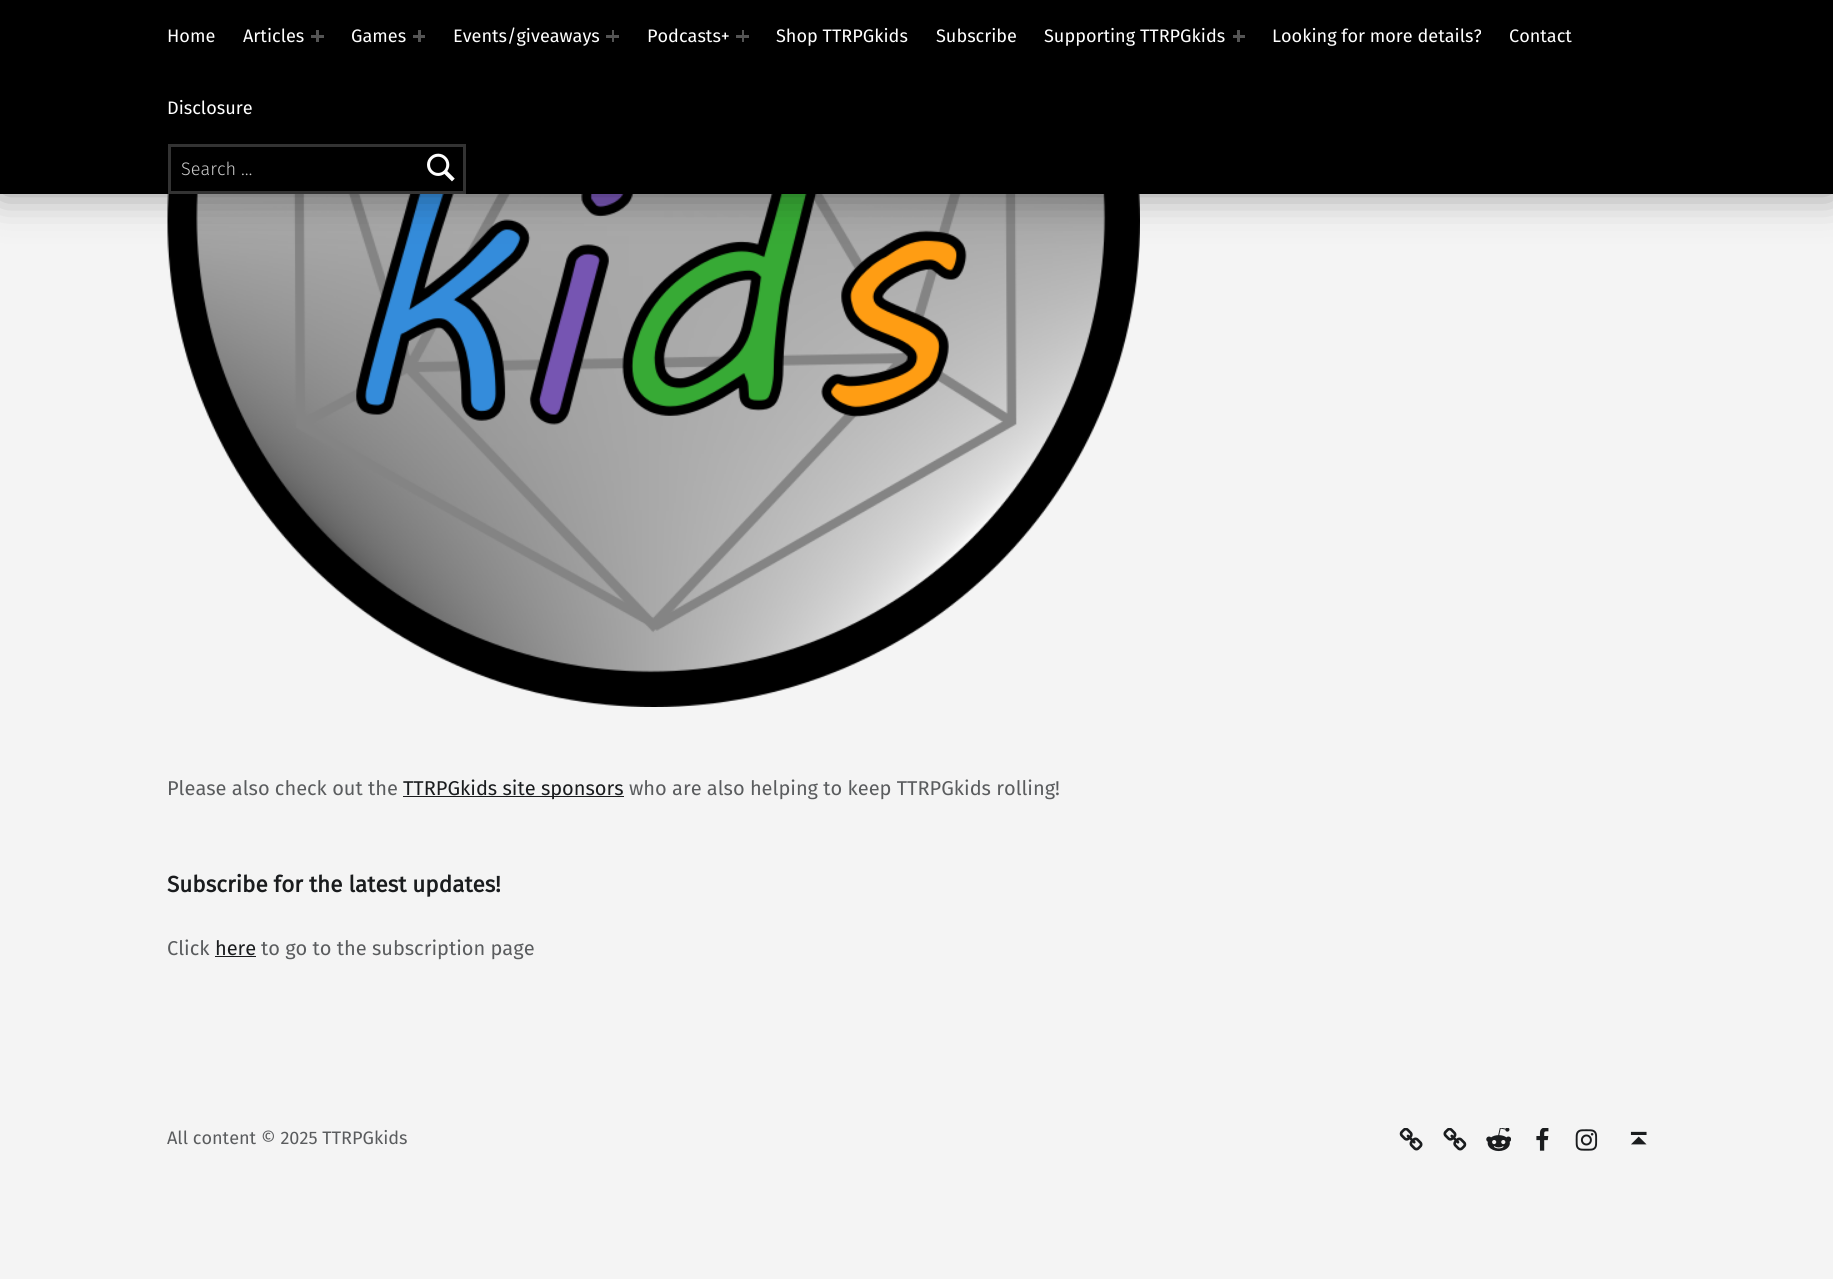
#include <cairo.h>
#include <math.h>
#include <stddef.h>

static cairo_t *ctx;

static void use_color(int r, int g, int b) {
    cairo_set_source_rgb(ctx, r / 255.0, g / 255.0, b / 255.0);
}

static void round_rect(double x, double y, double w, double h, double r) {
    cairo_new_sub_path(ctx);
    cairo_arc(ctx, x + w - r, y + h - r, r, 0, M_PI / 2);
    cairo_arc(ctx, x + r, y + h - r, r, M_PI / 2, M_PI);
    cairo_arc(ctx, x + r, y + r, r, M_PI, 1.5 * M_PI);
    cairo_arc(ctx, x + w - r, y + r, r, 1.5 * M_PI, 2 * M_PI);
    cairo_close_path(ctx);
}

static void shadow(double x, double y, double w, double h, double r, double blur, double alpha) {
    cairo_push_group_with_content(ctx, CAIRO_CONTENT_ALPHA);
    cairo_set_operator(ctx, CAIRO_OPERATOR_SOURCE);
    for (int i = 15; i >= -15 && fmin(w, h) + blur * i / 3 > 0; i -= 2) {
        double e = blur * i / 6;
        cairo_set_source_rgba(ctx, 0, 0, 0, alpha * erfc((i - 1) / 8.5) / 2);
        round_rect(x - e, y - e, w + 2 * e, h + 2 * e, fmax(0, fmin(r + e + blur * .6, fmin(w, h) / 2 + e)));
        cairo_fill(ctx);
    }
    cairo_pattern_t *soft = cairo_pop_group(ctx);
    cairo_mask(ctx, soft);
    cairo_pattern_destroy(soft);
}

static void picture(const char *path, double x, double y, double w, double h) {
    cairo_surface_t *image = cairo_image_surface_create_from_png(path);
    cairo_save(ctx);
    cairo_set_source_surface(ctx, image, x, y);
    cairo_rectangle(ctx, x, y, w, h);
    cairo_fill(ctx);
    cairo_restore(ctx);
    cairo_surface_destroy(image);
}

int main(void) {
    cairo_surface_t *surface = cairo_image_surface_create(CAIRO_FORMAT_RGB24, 1833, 1279);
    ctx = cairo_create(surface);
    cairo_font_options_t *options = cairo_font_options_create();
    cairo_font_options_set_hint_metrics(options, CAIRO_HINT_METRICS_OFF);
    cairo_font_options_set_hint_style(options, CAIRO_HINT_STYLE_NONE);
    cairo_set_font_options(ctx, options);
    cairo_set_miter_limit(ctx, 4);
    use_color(244, 244, 244);
    cairo_paint(ctx);
    picture("img2.png", 167, 194, 973, 513);
    use_color(0, 0, 0);
    shadow(0, 0, 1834, 194, 0, 20, 0.4);
    use_color(0, 0, 0);
    cairo_rectangle(ctx, 0, 0, 1833, 194);
    cairo_fill(ctx);
    cairo_select_font_face(ctx, "Fira Sans", CAIRO_FONT_SLANT_NORMAL, CAIRO_FONT_WEIGHT_NORMAL);
    cairo_set_font_size(ctx, 18.1);
    use_color(255, 255, 255);
    cairo_move_to(ctx, 167, 42);
    cairo_show_text(ctx, "Home");
    cairo_move_to(ctx, 243, 42);
    cairo_show_text(ctx, "Articles");
    use_color(84, 84, 84);
    cairo_rectangle(ctx, 311, 35, 13, 3);
    cairo_fill(ctx);
    cairo_rectangle(ctx, 316, 30, 3, 12);
    cairo_fill(ctx);
    use_color(255, 255, 255);
    cairo_move_to(ctx, 351, 42);
    cairo_show_text(ctx, "Games");
    use_color(84, 84, 84);
    cairo_rectangle(ctx, 413, 35, 12, 3);
    cairo_fill(ctx);
    cairo_rectangle(ctx, 418, 30, 3, 12);
    cairo_fill(ctx);
    use_color(255, 255, 255);
    cairo_move_to(ctx, 453, 42);
    cairo_show_text(ctx, "Events/giveaways");
    use_color(84, 84, 84);
    cairo_rectangle(ctx, 606, 35, 13, 3);
    cairo_fill(ctx);
    cairo_rectangle(ctx, 612, 30, 2, 12);
    cairo_fill(ctx);
    use_color(255, 255, 255);
    cairo_move_to(ctx, 647, 42);
    cairo_show_text(ctx, "Podcasts+");
    use_color(84, 84, 84);
    cairo_rectangle(ctx, 736, 35, 13, 3);
    cairo_fill(ctx);
    cairo_rectangle(ctx, 742, 30, 2, 12);
    cairo_fill(ctx);
    use_color(255, 255, 255);
    cairo_move_to(ctx, 776, 42);
    cairo_show_text(ctx, "Shop TTRPGkids");
    cairo_move_to(ctx, 936, 42);
    cairo_show_text(ctx, "Subscribe");
    cairo_move_to(ctx, 1044, 42);
    cairo_show_text(ctx, "Supporting TTRPGkids");
    use_color(84, 84, 84);
    cairo_rectangle(ctx, 1233, 35, 12, 3);
    cairo_fill(ctx);
    cairo_rectangle(ctx, 1237, 30, 3, 12);
    cairo_fill(ctx);
    use_color(255, 255, 255);
    cairo_move_to(ctx, 1272, 42);
    cairo_show_text(ctx, "Looking for more details?");
    cairo_move_to(ctx, 1509, 42);
    cairo_show_text(ctx, "Contact");
    cairo_move_to(ctx, 167, 114);
    cairo_show_text(ctx, "Disclosure");
    cairo_rectangle(ctx, 169.5, 145.5, 295, 47);
    use_color(51, 51, 51);
    cairo_set_line_width(ctx, 3);
    cairo_stroke(ctx);
    cairo_select_font_face(ctx, "Fira Sans Light", CAIRO_FONT_SLANT_NORMAL, CAIRO_FONT_WEIGHT_NORMAL);
    use_color(204, 204, 204);
    cairo_move_to(ctx, 181, 175);
    cairo_show_text(ctx, "Search …");
    picture("img1.png", 427, 153, 28, 29);
    cairo_select_font_face(ctx, "Fira Sans", CAIRO_FONT_SLANT_NORMAL, CAIRO_FONT_WEIGHT_NORMAL);
    cairo_set_font_size(ctx, 20);
    use_color(90, 92, 94);
    cairo_move_to(ctx, 167, 795);
    cairo_show_text(ctx, "Please also check out the");
    use_color(26, 28, 30);
    cairo_rectangle(ctx, 403, 796, 221, 1);
    cairo_fill(ctx);
    cairo_move_to(ctx, 403, 795);
    cairo_show_text(ctx, "TTRPGkids site sponsors");
    use_color(90, 92, 94);
    cairo_move_to(ctx, 629, 795);
    cairo_show_text(ctx, "who are also helping to keep TTRPGkids rolling!");
    cairo_select_font_face(ctx, "Fira Sans", CAIRO_FONT_SLANT_NORMAL, CAIRO_FONT_WEIGHT_BOLD);
    cairo_set_font_size(ctx, 22.5);
    use_color(26, 28, 30);
    cairo_move_to(ctx, 167, 892);
    cairo_show_text(ctx, "Subscribe for the latest updates!");
    cairo_select_font_face(ctx, "Fira Sans", CAIRO_FONT_SLANT_NORMAL, CAIRO_FONT_WEIGHT_NORMAL);
    cairo_set_font_size(ctx, 20);
    use_color(90, 92, 94);
    cairo_move_to(ctx, 167, 955);
    cairo_show_text(ctx, "Click");
    use_color(26, 28, 30);
    cairo_move_to(ctx, 215, 955);
    cairo_show_text(ctx, "here");
    cairo_rectangle(ctx, 215, 956, 41, 1);
    cairo_fill(ctx);
    use_color(90, 92, 94);
    cairo_move_to(ctx, 261, 955);
    cairo_show_text(ctx, "to go to the subscription page");
    cairo_set_font_size(ctx, 18.1);
    cairo_move_to(ctx, 167, 1144);
    cairo_show_text(ctx, "All content © 2025 TTRPGkids");
    picture("img3.png", 1399, 1128, 24, 23);
    picture("img4.png", 1443, 1128, 24, 23);
    picture("img5.png", 1486, 1128, 25, 24);
    picture("img6.png", 1536, 1128, 13, 23);
    picture("img7.png", 1575, 1129, 23, 22);
    picture("img8.png", 1630, 1131, 17, 14);
    cairo_surface_write_to_png(surface, "result.png");
    cairo_font_options_destroy(options);
    cairo_destroy(ctx);
    cairo_surface_destroy(surface);
    return 0;
}
